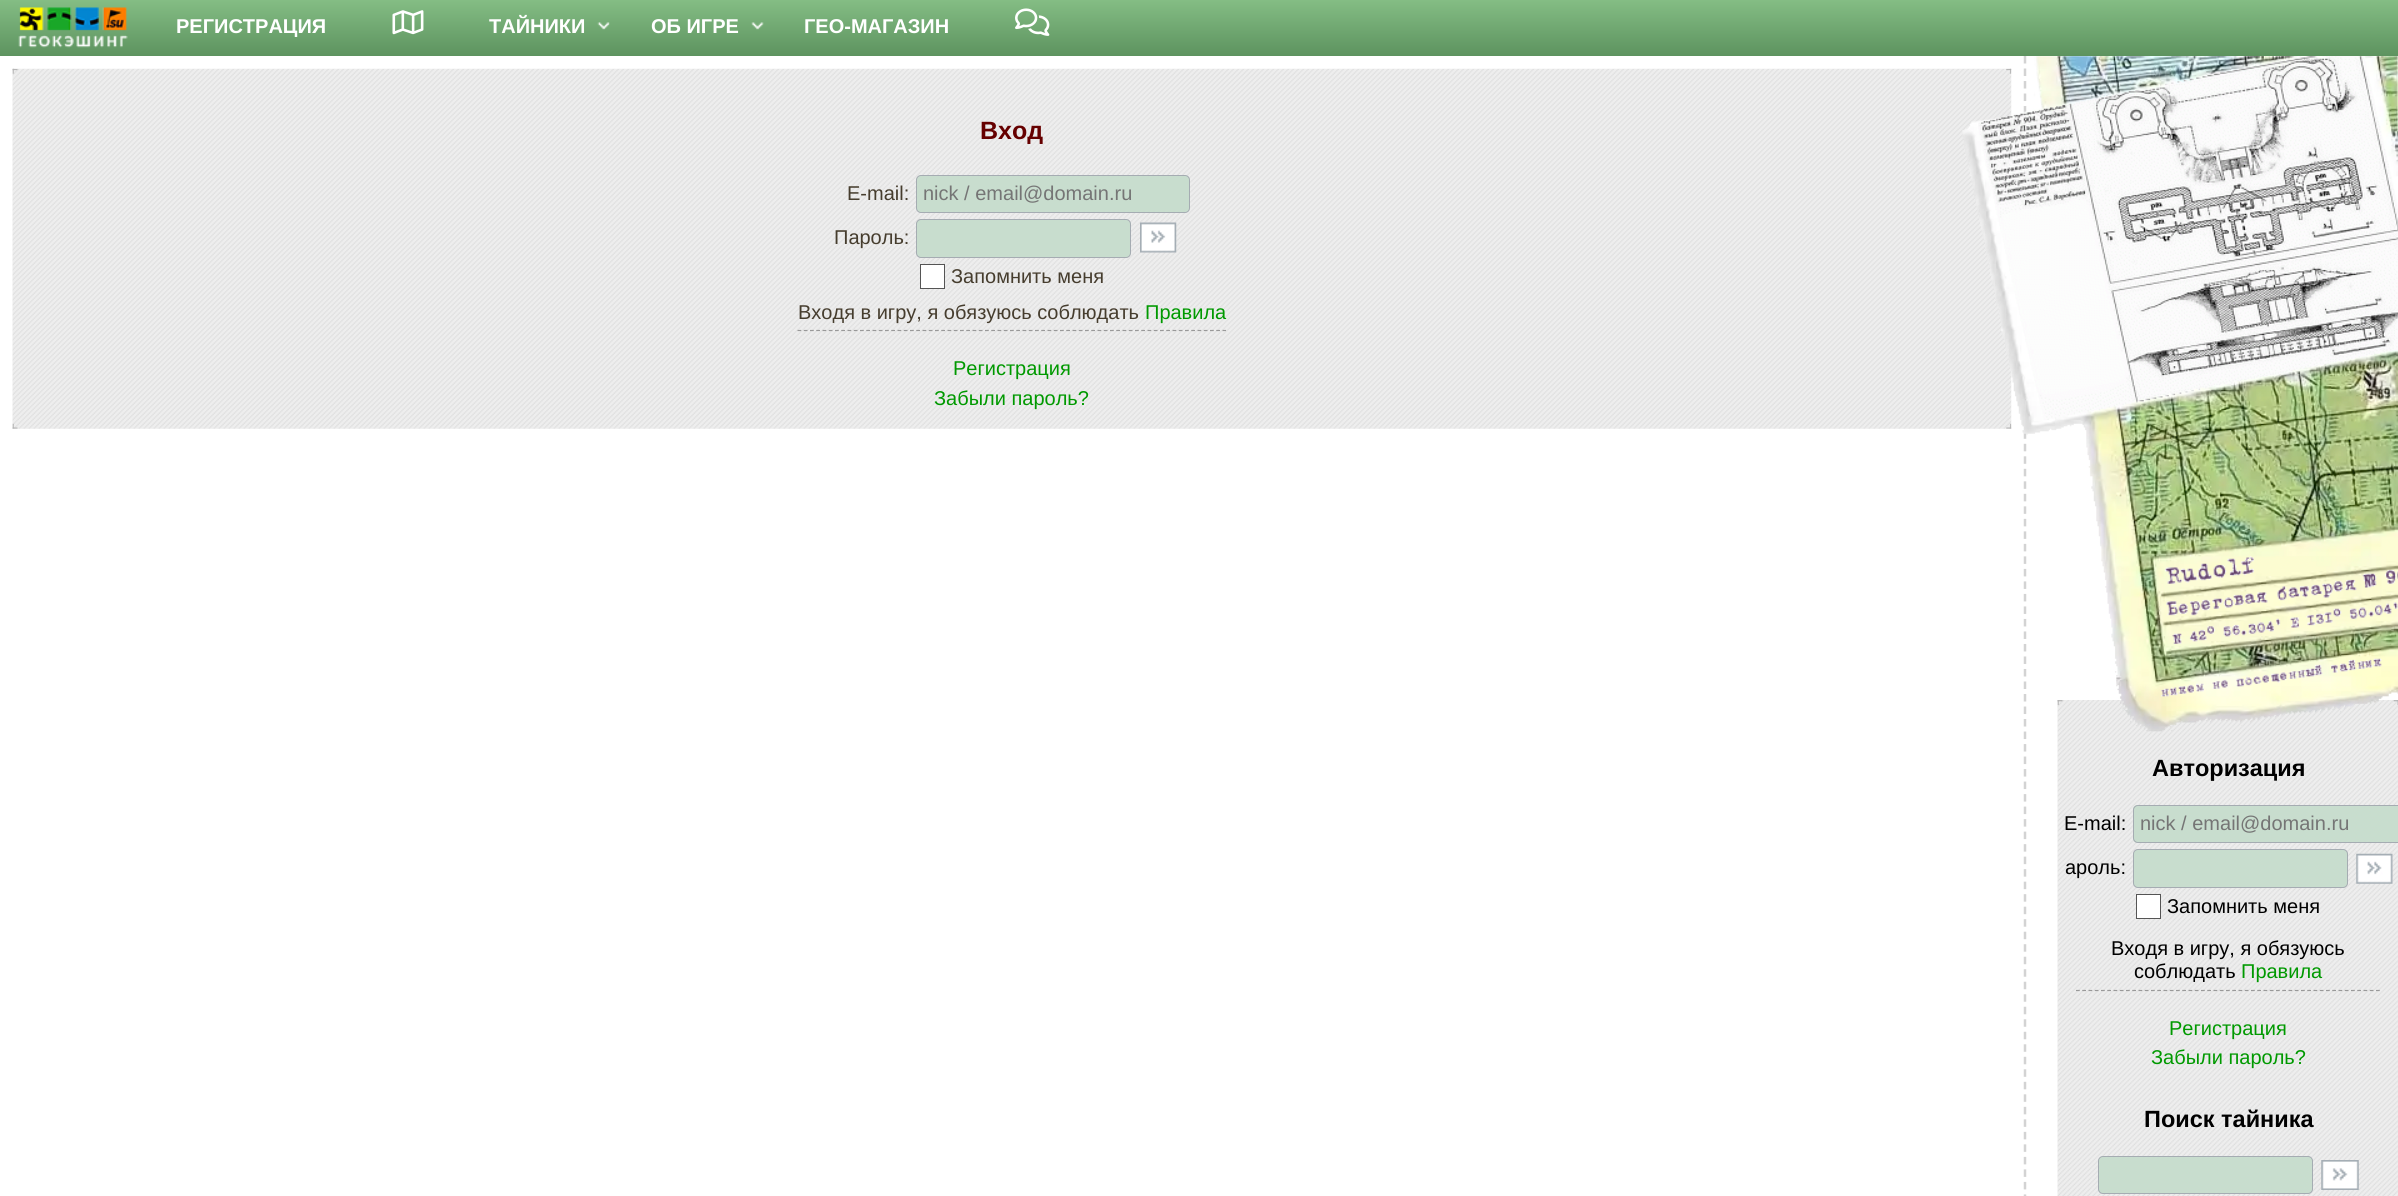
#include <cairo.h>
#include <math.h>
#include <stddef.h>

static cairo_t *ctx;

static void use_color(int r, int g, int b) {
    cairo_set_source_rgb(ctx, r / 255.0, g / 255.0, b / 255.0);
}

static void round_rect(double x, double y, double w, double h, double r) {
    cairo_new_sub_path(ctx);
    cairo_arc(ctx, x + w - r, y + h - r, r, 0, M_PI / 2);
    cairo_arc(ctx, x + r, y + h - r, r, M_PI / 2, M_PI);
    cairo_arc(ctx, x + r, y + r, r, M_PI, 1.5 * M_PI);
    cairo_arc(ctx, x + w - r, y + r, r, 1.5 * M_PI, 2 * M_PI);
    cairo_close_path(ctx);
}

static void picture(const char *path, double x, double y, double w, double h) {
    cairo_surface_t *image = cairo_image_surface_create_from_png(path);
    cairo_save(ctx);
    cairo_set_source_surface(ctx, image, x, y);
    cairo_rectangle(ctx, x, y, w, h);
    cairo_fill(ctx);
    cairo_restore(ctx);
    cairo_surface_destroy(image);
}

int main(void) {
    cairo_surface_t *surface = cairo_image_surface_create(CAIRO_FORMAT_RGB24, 2398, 1196);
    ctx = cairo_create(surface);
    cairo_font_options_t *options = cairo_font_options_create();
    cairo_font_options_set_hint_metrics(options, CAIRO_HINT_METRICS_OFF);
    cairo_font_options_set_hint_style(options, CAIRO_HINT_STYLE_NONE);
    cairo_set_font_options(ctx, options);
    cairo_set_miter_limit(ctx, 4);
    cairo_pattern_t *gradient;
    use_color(255, 255, 255);
    cairo_paint(ctx);
    gradient = cairo_pattern_create_linear(1199, 0, 1199, 56);
    cairo_pattern_add_color_stop_rgba(gradient, 0, 0.518, 0.741, 0.518, 1);
    cairo_pattern_add_color_stop_rgba(gradient, 1, 0.365, 0.576, 0.373, 1);
    cairo_set_source(ctx, gradient);
    cairo_pattern_destroy(gradient);
    cairo_rectangle(ctx, 0, 0, 2398, 56);
    cairo_fill(ctx);
    picture("img1.png", 18, 7, 110, 41);
    cairo_select_font_face(ctx, "Liberation Sans", CAIRO_FONT_SLANT_NORMAL, CAIRO_FONT_WEIGHT_BOLD);
    cairo_set_font_size(ctx, 20);
    use_color(255, 255, 255);
    cairo_move_to(ctx, 176, 33);
    cairo_show_text(ctx, "РЕГИСТРАЦИЯ");
    picture("img2.png", 392, 10, 32, 25);
    picture("img3.png", 597, 22, 13, 8);
    cairo_move_to(ctx, 489, 33);
    cairo_show_text(ctx, "ТАЙНИКИ");
    picture("img4.png", 751, 22, 13, 8);
    cairo_move_to(ctx, 651, 33);
    cairo_show_text(ctx, "ОБ ИГРЕ");
    cairo_move_to(ctx, 804, 33);
    cairo_show_text(ctx, "ГЕО-МАГАЗИН");
    picture("img5.png", 1015, 8, 35, 28);
    picture("img6.png", 12, 68, 2000, 361);
    picture("img7.png", 12, 68, 6, 6);
    picture("img8.png", 2006, 68, 6, 6);
    cairo_set_font_size(ctx, 25);
    use_color(102, 0, 0);
    cairo_move_to(ctx, 980, 139);
    cairo_show_text(ctx, "Вход");
    cairo_select_font_face(ctx, "Liberation Sans", CAIRO_FONT_SLANT_NORMAL, CAIRO_FONT_WEIGHT_NORMAL);
    cairo_set_font_size(ctx, 20);
    use_color(70, 61, 46);
    cairo_move_to(ctx, 847, 200);
    cairo_show_text(ctx, "E-mail:");
    use_color(200, 221, 206);
    round_rect(916.5, 175.5, 273, 37, 4.5);
    cairo_fill_preserve(ctx);
    use_color(165, 172, 178);
    cairo_set_line_width(ctx, 1);
    cairo_stroke(ctx);
    use_color(117, 117, 117);
    cairo_move_to(ctx, 923, 200);
    cairo_show_text(ctx, "nick / email@domain.ru");
    use_color(70, 61, 46);
    cairo_move_to(ctx, 834, 244);
    cairo_show_text(ctx, "Пароль:");
    use_color(200, 221, 206);
    round_rect(916.5, 219.5, 214, 38, 4.5);
    cairo_fill_preserve(ctx);
    use_color(165, 172, 178);
    cairo_stroke(ctx);
    picture("img9.png", 1140, 222, 37, 31);
    use_color(255, 255, 255);
    cairo_rectangle(ctx, 920.5, 264.5, 24, 24);
    cairo_fill_preserve(ctx);
    use_color(85, 85, 85);
    cairo_stroke(ctx);
    use_color(70, 61, 46);
    cairo_move_to(ctx, 951, 283);
    cairo_show_text(ctx, "Запомнить меня");
    cairo_new_path(ctx);
    cairo_move_to(ctx, 797.5, 330.5);
    cairo_line_to(ctx, 1226, 330.5);
    use_color(153, 153, 153);
    cairo_set_line_width(ctx, 1.2);
    cairo_set_dash(ctx, (double[]){3.75, 2.5}, 2, 0);
    cairo_stroke(ctx);
    use_color(70, 61, 46);
    cairo_move_to(ctx, 798, 319);
    cairo_show_text(ctx, "Входя в игру, я обязуюсь соблюдать");
    use_color(0, 153, 0);
    cairo_move_to(ctx, 1145, 319);
    cairo_show_text(ctx, "Правила");
    cairo_move_to(ctx, 953, 375);
    cairo_show_text(ctx, "Регистрация");
    cairo_move_to(ctx, 934, 405);
    cairo_show_text(ctx, "Забыли пароль?");
    picture("img10.png", 12, 423, 6, 6);
    picture("img11.png", 2006, 423, 6, 6);
    cairo_new_path(ctx);
    cairo_move_to(ctx, 2025, 56);
    cairo_line_to(ctx, 2025, 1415);
    use_color(211, 211, 211);
    cairo_set_line_width(ctx, 2.5);
    cairo_set_dash(ctx, (double[]){7.5, 5.01}, 2, 0);
    cairo_stroke(ctx);
    picture("img14.png", 2057, 700, 341, 496);
    picture("img15.png", 2057, 700, 6, 5);
    picture("img16.png", 2393, 700, 5, 5);
    picture("img12.png", 1962, 56, 436, 676);
    picture("img13.png", 1978, 56, 420, 641);
    cairo_select_font_face(ctx, "Liberation Sans", CAIRO_FONT_SLANT_NORMAL, CAIRO_FONT_WEIGHT_BOLD);
    cairo_set_font_size(ctx, 23.5);
    use_color(0, 0, 0);
    cairo_move_to(ctx, 2152, 776);
    cairo_show_text(ctx, "Авторизация");
    cairo_select_font_face(ctx, "Liberation Sans", CAIRO_FONT_SLANT_NORMAL, CAIRO_FONT_WEIGHT_NORMAL);
    cairo_set_font_size(ctx, 20);
    cairo_move_to(ctx, 2064, 830);
    cairo_show_text(ctx, "E-mail:");
    use_color(200, 221, 206);
    cairo_new_path(ctx);
    cairo_move_to(ctx, 2138, 805);
    cairo_line_to(ctx, 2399, 805);
    cairo_line_to(ctx, 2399, 843);
    cairo_line_to(ctx, 2138, 843);
    cairo_curve_to(ctx, 2135, 843, 2133, 841, 2133, 838);
    cairo_line_to(ctx, 2133, 810);
    cairo_curve_to(ctx, 2133, 807, 2135, 805, 2138, 805);
    cairo_close_path(ctx);
    cairo_fill(ctx);
    round_rect(2133.5, 805.5, 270, 37, 4.5);
    use_color(165, 172, 178);
    cairo_set_line_width(ctx, 1);
    cairo_set_dash(ctx, NULL, 0, 0);
    cairo_stroke(ctx);
    use_color(117, 117, 117);
    cairo_move_to(ctx, 2140, 830);
    cairo_show_text(ctx, "nick / email@domain.ru");
    use_color(0, 0, 0);
    cairo_move_to(ctx, 2065, 874);
    cairo_show_text(ctx, "ароль:");
    use_color(200, 221, 206);
    round_rect(2133.5, 849.5, 214, 38, 4.5);
    cairo_fill_preserve(ctx);
    use_color(165, 172, 178);
    cairo_stroke(ctx);
    picture("img17.png", 2356, 853, 37, 31);
    use_color(255, 255, 255);
    cairo_rectangle(ctx, 2136.5, 894.5, 24, 24);
    cairo_fill_preserve(ctx);
    use_color(85, 85, 85);
    cairo_stroke(ctx);
    use_color(0, 0, 0);
    cairo_move_to(ctx, 2167, 913);
    cairo_show_text(ctx, "Запомнить меня");
    cairo_new_path(ctx);
    cairo_move_to(ctx, 2076, 990.5);
    cairo_line_to(ctx, 2380, 990.5);
    use_color(153, 153, 153);
    cairo_set_line_width(ctx, 1.2);
    cairo_set_dash(ctx, (double[]){3.75, 2.5}, 2, 0);
    cairo_stroke(ctx);
    use_color(0, 0, 0);
    cairo_move_to(ctx, 2111, 955);
    cairo_show_text(ctx, "Входя в игру, я обязуюсь");
    cairo_move_to(ctx, 2134, 978);
    cairo_show_text(ctx, "соблюдать");
    use_color(0, 153, 0);
    cairo_move_to(ctx, 2241, 978);
    cairo_show_text(ctx, "Правила");
    cairo_move_to(ctx, 2169, 1035);
    cairo_show_text(ctx, "Регистрация");
    cairo_move_to(ctx, 2151, 1064);
    cairo_show_text(ctx, "Забыли пароль?");
    cairo_select_font_face(ctx, "Liberation Sans", CAIRO_FONT_SLANT_NORMAL, CAIRO_FONT_WEIGHT_BOLD);
    cairo_set_font_size(ctx, 23.5);
    use_color(0, 0, 0);
    cairo_move_to(ctx, 2144, 1127);
    cairo_show_text(ctx, "Поиск тайника");
    use_color(200, 221, 206);
    round_rect(2098.5, 1156.5, 214, 37, 4.5);
    cairo_fill_preserve(ctx);
    use_color(165, 172, 178);
    cairo_set_line_width(ctx, 1);
    cairo_set_dash(ctx, NULL, 0, 0);
    cairo_stroke(ctx);
    picture("img18.png", 2321, 1160, 38, 30);
    cairo_surface_write_to_png(surface, "result.png");
    cairo_font_options_destroy(options);
    cairo_destroy(ctx);
    cairo_surface_destroy(surface);
    return 0;
}
